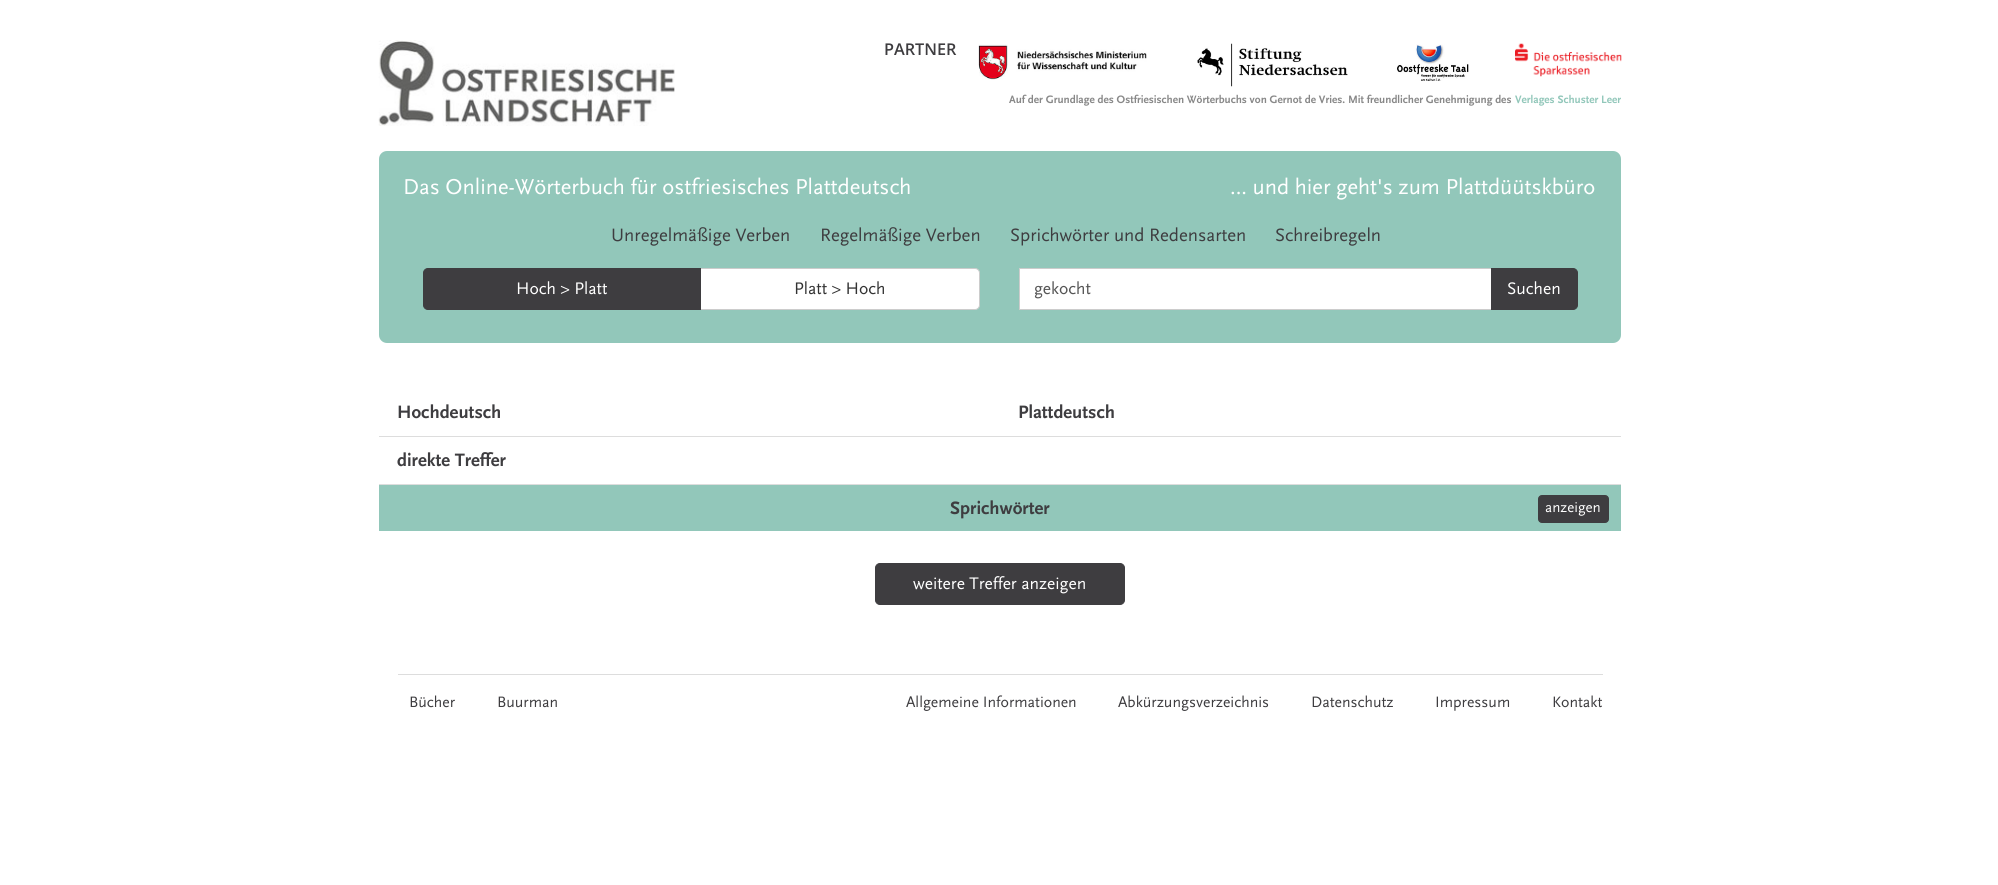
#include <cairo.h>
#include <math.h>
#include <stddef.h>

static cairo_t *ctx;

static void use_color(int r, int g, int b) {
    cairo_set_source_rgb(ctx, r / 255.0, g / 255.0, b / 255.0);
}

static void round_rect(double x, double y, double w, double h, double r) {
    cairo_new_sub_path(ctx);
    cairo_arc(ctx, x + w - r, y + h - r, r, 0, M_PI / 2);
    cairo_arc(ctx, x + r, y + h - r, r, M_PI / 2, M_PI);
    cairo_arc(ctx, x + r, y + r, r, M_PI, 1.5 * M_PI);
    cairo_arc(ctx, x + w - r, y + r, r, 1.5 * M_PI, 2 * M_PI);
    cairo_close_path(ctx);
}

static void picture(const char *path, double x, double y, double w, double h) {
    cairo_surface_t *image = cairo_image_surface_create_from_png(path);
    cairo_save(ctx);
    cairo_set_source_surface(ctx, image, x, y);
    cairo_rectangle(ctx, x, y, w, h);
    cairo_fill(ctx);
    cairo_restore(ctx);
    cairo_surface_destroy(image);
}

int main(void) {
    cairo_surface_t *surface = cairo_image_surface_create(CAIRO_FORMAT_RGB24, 1998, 885);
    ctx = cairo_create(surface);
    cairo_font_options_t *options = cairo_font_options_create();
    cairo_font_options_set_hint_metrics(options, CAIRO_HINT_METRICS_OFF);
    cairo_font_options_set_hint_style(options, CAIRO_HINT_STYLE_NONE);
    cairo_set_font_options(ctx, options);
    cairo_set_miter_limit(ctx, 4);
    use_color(255, 255, 255);
    cairo_paint(ctx);
    picture("img1.png", 378, 40, 297, 86);
    cairo_select_font_face(ctx, "Open Sans SemiBold", CAIRO_FONT_SLANT_NORMAL, CAIRO_FONT_WEIGHT_NORMAL);
    cairo_set_font_size(ctx, 16.25);
    use_color(62, 61, 64);
    cairo_move_to(ctx, 884, 55);
    cairo_show_text(ctx, "PARTNER");
    picture("img2.png", 978, 44, 169, 36);
    picture("img3.png", 1197, 43, 151, 44);
    picture("img4.png", 1397, 44, 72, 37);
    picture("img5.png", 1515, 43, 107, 34);
    cairo_select_font_face(ctx, "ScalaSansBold", CAIRO_FONT_SLANT_NORMAL, CAIRO_FONT_WEIGHT_BOLD);
    cairo_set_font_size(ctx, 11.25);
    use_color(136, 136, 136);
    cairo_move_to(ctx, 1009, 103);
    cairo_show_text(ctx, "Auf der Grundlage des Ostfriesischen Wörterbuchs von Gernot de Vries. Mit freundlicher Genehmigung des");
    use_color(146, 199, 186);
    cairo_move_to(ctx, 1515, 103);
    cairo_show_text(ctx, "Verlages Schuster Leer");
    round_rect(379, 151, 1242, 192, 8);
    cairo_fill(ctx);
    cairo_select_font_face(ctx, "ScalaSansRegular", CAIRO_FONT_SLANT_NORMAL, CAIRO_FONT_WEIGHT_NORMAL);
    cairo_set_font_size(ctx, 22.5);
    use_color(255, 255, 255);
    cairo_move_to(ctx, 403, 194);
    cairo_show_text(ctx, "Das Online-Wörterbuch für ostfriesisches Plattdeutsch");
    cairo_move_to(ctx, 1230, 194);
    cairo_show_text(ctx, "... und hier geht's zum Plattdüütskbüro");
    cairo_set_font_size(ctx, 18.75);
    use_color(62, 61, 64);
    cairo_move_to(ctx, 611, 241);
    cairo_show_text(ctx, "Unregelmäßige Verben");
    cairo_move_to(ctx, 820, 241);
    cairo_show_text(ctx, "Regelmäßige Verben");
    cairo_move_to(ctx, 1010, 241);
    cairo_show_text(ctx, "Sprichwörter und Redensarten");
    cairo_move_to(ctx, 1275, 241);
    cairo_show_text(ctx, "Schreibregeln");
    use_color(255, 255, 255);
    cairo_new_path(ctx);
    cairo_move_to(ctx, 700.5, 268.5);
    cairo_line_to(ctx, 975, 268.5);
    cairo_curve_to(ctx, 977.5, 268.5, 979.5, 270.5, 979.5, 273);
    cairo_line_to(ctx, 979.5, 305);
    cairo_curve_to(ctx, 979.5, 307.5, 977.5, 309.5, 975, 309.5);
    cairo_line_to(ctx, 700.5, 309.5);
    cairo_close_path(ctx);
    cairo_fill_preserve(ctx);
    use_color(204, 204, 204);
    cairo_set_line_width(ctx, 1);
    cairo_stroke(ctx);
    use_color(62, 61, 64);
    cairo_new_path(ctx);
    cairo_move_to(ctx, 428, 268.5);
    cairo_line_to(ctx, 700.5, 268.5);
    cairo_line_to(ctx, 700.5, 309.5);
    cairo_line_to(ctx, 428, 309.5);
    cairo_curve_to(ctx, 425.5, 309.5, 423.5, 307.5, 423.5, 305);
    cairo_line_to(ctx, 423.5, 273);
    cairo_curve_to(ctx, 423.5, 270.5, 425.5, 268.5, 428, 268.5);
    cairo_close_path(ctx);
    cairo_fill_preserve(ctx);
    cairo_stroke(ctx);
    cairo_set_font_size(ctx, 17.5);
    use_color(255, 255, 255);
    cairo_move_to(ctx, 516, 294);
    cairo_show_text(ctx, "Hoch > Platt");
    use_color(51, 51, 51);
    cairo_move_to(ctx, 794, 294);
    cairo_show_text(ctx, "Platt > Hoch");
    use_color(255, 255, 255);
    cairo_rectangle(ctx, 1020, 269, 471, 40);
    cairo_fill(ctx);
    cairo_rectangle(ctx, 1019.5, 268.5, 473, 41);
    use_color(204, 204, 204);
    cairo_stroke(ctx);
    use_color(85, 85, 85);
    cairo_move_to(ctx, 1034, 294);
    cairo_show_text(ctx, "gekocht");
    use_color(62, 61, 64);
    cairo_new_path(ctx);
    cairo_move_to(ctx, 1491.5, 268.5);
    cairo_line_to(ctx, 1573, 268.5);
    cairo_curve_to(ctx, 1575.5, 268.5, 1577.5, 270.5, 1577.5, 273);
    cairo_line_to(ctx, 1577.5, 305);
    cairo_curve_to(ctx, 1577.5, 307.5, 1575.5, 309.5, 1573, 309.5);
    cairo_line_to(ctx, 1491.5, 309.5);
    cairo_close_path(ctx);
    cairo_fill_preserve(ctx);
    cairo_stroke(ctx);
    use_color(255, 255, 255);
    cairo_move_to(ctx, 1507, 294);
    cairo_show_text(ctx, "Suchen");
    use_color(221, 221, 221);
    cairo_rectangle(ctx, 379, 436, 1242, 1);
    cairo_fill(ctx);
    cairo_select_font_face(ctx, "ScalaSansBold", CAIRO_FONT_SLANT_NORMAL, CAIRO_FONT_WEIGHT_BOLD);
    cairo_set_font_size(ctx, 18.75);
    use_color(62, 61, 64);
    cairo_move_to(ctx, 397, 418);
    cairo_show_text(ctx, "Hochdeutsch");
    cairo_move_to(ctx, 1018, 418);
    cairo_show_text(ctx, "Plattdeutsch");
    cairo_move_to(ctx, 397, 466);
    cairo_show_text(ctx, "direkte Treffer");
    use_color(146, 199, 186);
    cairo_rectangle(ctx, 379, 485, 1242, 46);
    cairo_fill(ctx);
    use_color(221, 221, 221);
    cairo_rectangle(ctx, 379, 484, 1242, 1);
    cairo_fill(ctx);
    use_color(62, 61, 64);
    cairo_move_to(ctx, 950, 514);
    cairo_show_text(ctx, "Sprichwörter");
    round_rect(1538.5, 495.5, 70, 27, 3.5);
    cairo_fill_preserve(ctx);
    cairo_stroke(ctx);
    cairo_select_font_face(ctx, "ScalaSansRegular", CAIRO_FONT_SLANT_NORMAL, CAIRO_FONT_WEIGHT_NORMAL);
    cairo_set_font_size(ctx, 15);
    use_color(255, 255, 255);
    cairo_move_to(ctx, 1545, 512);
    cairo_show_text(ctx, "anzeigen");
    use_color(62, 61, 64);
    round_rect(875.5, 563.5, 249, 41, 4.5);
    cairo_fill_preserve(ctx);
    cairo_stroke(ctx);
    cairo_set_font_size(ctx, 17.5);
    use_color(255, 255, 255);
    cairo_move_to(ctx, 913, 589);
    cairo_show_text(ctx, "weitere Treffer anzeigen");
    use_color(221, 221, 221);
    cairo_rectangle(ctx, 398, 674, 1205, 1);
    cairo_fill(ctx);
    cairo_set_font_size(ctx, 15.75);
    use_color(62, 61, 64);
    cairo_move_to(ctx, 409, 707);
    cairo_show_text(ctx, "Bücher");
    cairo_move_to(ctx, 497, 707);
    cairo_show_text(ctx, "Buurman");
    cairo_move_to(ctx, 906, 707);
    cairo_show_text(ctx, "Allgemeine Informationen");
    cairo_move_to(ctx, 1118, 707);
    cairo_show_text(ctx, "Abkürzungsverzeichnis");
    cairo_move_to(ctx, 1311, 707);
    cairo_show_text(ctx, "Datenschutz");
    cairo_move_to(ctx, 1435, 707);
    cairo_show_text(ctx, "Impressum");
    cairo_move_to(ctx, 1552, 707);
    cairo_show_text(ctx, "Kontakt");
    cairo_surface_write_to_png(surface, "result.png");
    cairo_font_options_destroy(options);
    cairo_destroy(ctx);
    cairo_surface_destroy(surface);
    return 0;
}
